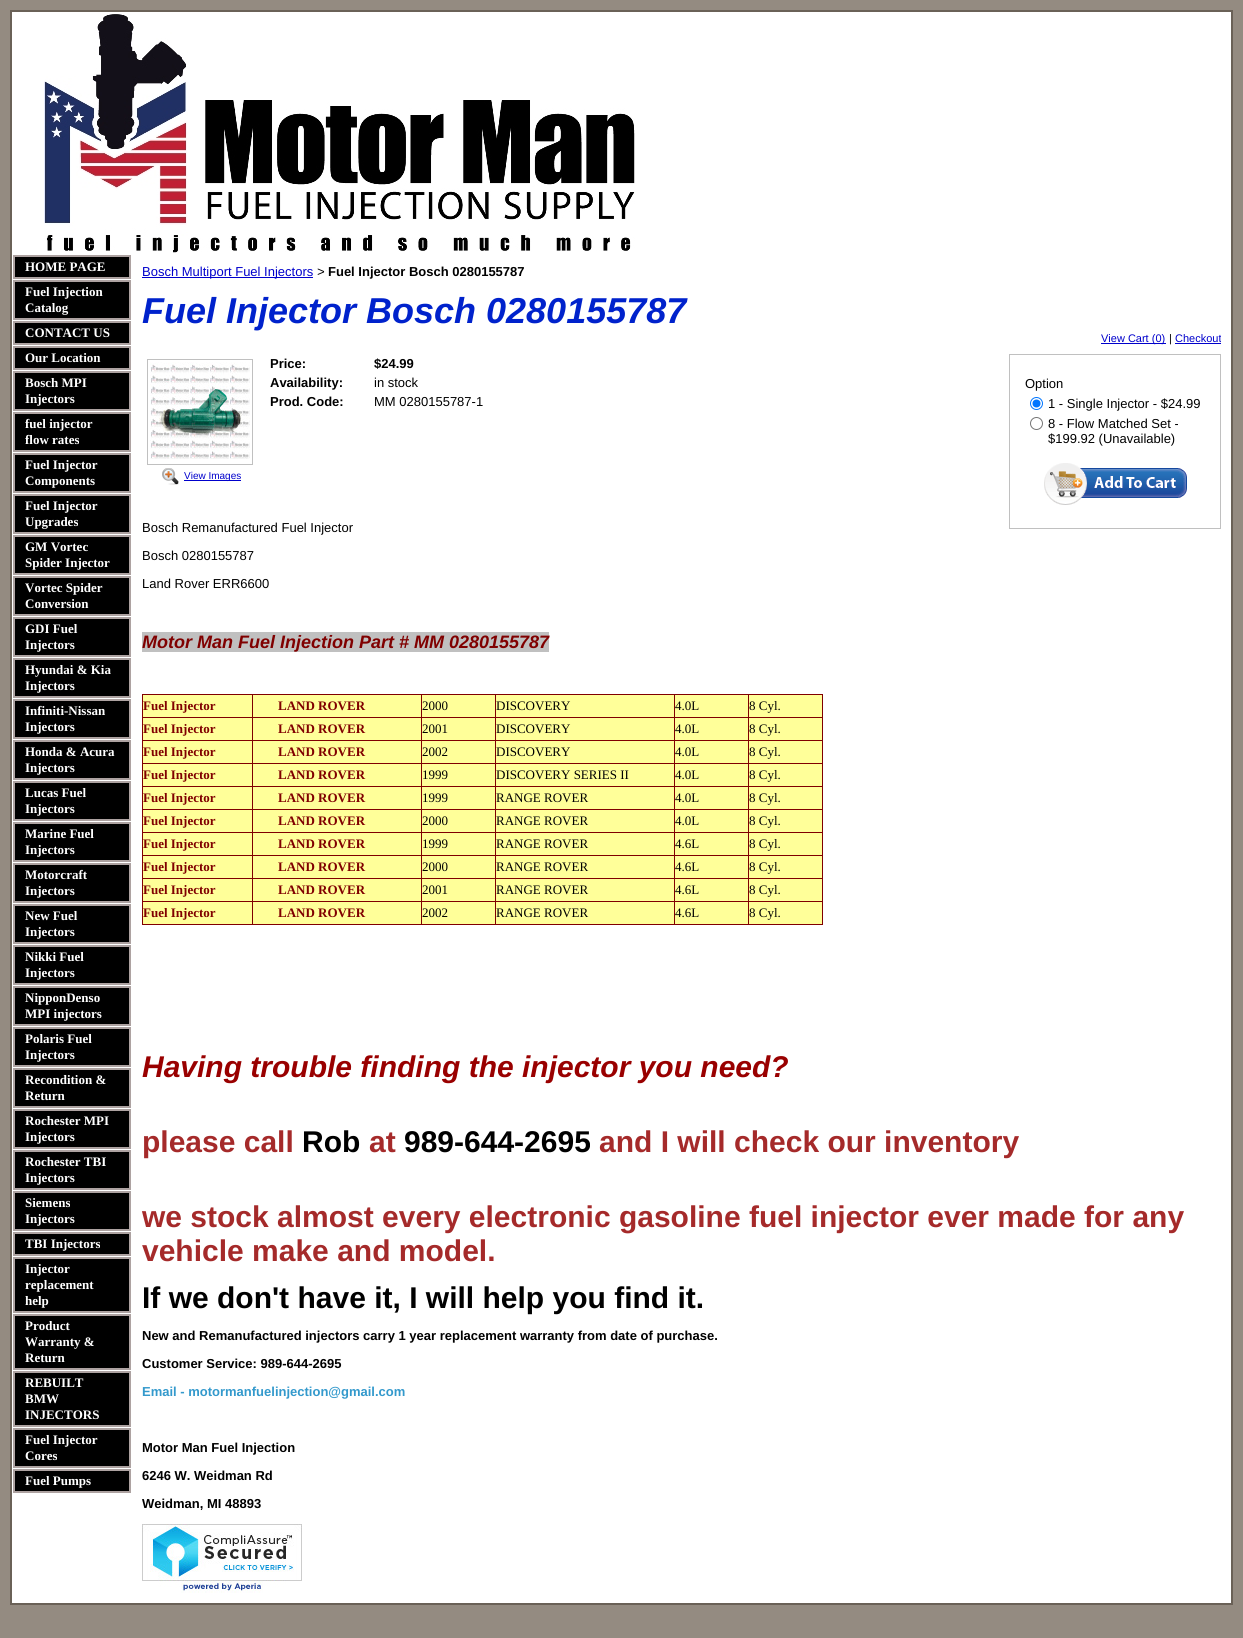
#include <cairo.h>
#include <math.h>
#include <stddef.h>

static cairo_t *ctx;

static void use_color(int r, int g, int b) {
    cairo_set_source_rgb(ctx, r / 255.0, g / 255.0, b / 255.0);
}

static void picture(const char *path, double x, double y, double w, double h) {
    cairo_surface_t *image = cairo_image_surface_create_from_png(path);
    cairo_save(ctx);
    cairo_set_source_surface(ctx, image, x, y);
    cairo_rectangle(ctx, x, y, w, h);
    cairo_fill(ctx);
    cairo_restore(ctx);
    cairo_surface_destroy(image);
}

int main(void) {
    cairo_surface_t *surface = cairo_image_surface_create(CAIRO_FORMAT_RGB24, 1243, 1638);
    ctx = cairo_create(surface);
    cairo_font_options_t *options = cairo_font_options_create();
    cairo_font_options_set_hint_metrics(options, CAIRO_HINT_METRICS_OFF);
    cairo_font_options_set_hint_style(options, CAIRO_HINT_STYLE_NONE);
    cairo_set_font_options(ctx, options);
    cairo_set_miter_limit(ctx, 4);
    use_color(148, 139, 129);
    cairo_paint(ctx);
    use_color(106, 97, 87);
    cairo_rectangle(ctx, 10, 10, 1223, 1595);
    cairo_fill(ctx);
    use_color(255, 255, 255);
    cairo_rectangle(ctx, 12, 12, 1219, 242);
    cairo_fill(ctx);
    picture("img1.png", 44, 14, 591, 239);
    cairo_rectangle(ctx, 12, 254, 120, 1349);
    cairo_fill(ctx);
    use_color(173, 162, 161);
    cairo_rectangle(ctx, 13, 255, 118, 24);
    cairo_fill(ctx);
    use_color(0, 0, 0);
    cairo_rectangle(ctx, 15, 257, 114, 20);
    cairo_fill(ctx);
    cairo_select_font_face(ctx, "Liberation Serif", CAIRO_FONT_SLANT_NORMAL, CAIRO_FONT_WEIGHT_BOLD);
    cairo_set_font_size(ctx, 13);
    use_color(255, 255, 255);
    cairo_move_to(ctx, 25, 271);
    cairo_show_text(ctx, "HOME PAGE");
    use_color(173, 162, 161);
    cairo_rectangle(ctx, 13, 280, 118, 40);
    cairo_fill(ctx);
    use_color(0, 0, 0);
    cairo_rectangle(ctx, 15, 282, 114, 36);
    cairo_fill(ctx);
    use_color(255, 255, 255);
    cairo_move_to(ctx, 25, 296);
    cairo_show_text(ctx, "Fuel Injection");
    cairo_move_to(ctx, 25, 312);
    cairo_show_text(ctx, "Catalog");
    use_color(173, 162, 161);
    cairo_rectangle(ctx, 13, 321, 118, 24);
    cairo_fill(ctx);
    use_color(0, 0, 0);
    cairo_rectangle(ctx, 15, 323, 114, 20);
    cairo_fill(ctx);
    use_color(255, 255, 255);
    cairo_move_to(ctx, 25, 337);
    cairo_show_text(ctx, "CONTACT US");
    use_color(173, 162, 161);
    cairo_rectangle(ctx, 13, 346, 118, 24);
    cairo_fill(ctx);
    use_color(0, 0, 0);
    cairo_rectangle(ctx, 15, 348, 114, 20);
    cairo_fill(ctx);
    use_color(255, 255, 255);
    cairo_move_to(ctx, 25, 362);
    cairo_show_text(ctx, "Our Location");
    use_color(173, 162, 161);
    cairo_rectangle(ctx, 13, 371, 118, 40);
    cairo_fill(ctx);
    use_color(0, 0, 0);
    cairo_rectangle(ctx, 15, 373, 114, 36);
    cairo_fill(ctx);
    use_color(255, 255, 255);
    cairo_move_to(ctx, 25, 387);
    cairo_show_text(ctx, "Bosch MPI");
    cairo_move_to(ctx, 25, 403);
    cairo_show_text(ctx, "Injectors");
    use_color(173, 162, 161);
    cairo_rectangle(ctx, 13, 412, 118, 40);
    cairo_fill(ctx);
    use_color(0, 0, 0);
    cairo_rectangle(ctx, 15, 414, 114, 36);
    cairo_fill(ctx);
    use_color(255, 255, 255);
    cairo_move_to(ctx, 25, 428);
    cairo_show_text(ctx, "fuel injector");
    cairo_move_to(ctx, 25, 444);
    cairo_show_text(ctx, "flow rates");
    use_color(173, 162, 161);
    cairo_rectangle(ctx, 13, 453, 118, 40);
    cairo_fill(ctx);
    use_color(0, 0, 0);
    cairo_rectangle(ctx, 15, 455, 114, 36);
    cairo_fill(ctx);
    use_color(255, 255, 255);
    cairo_move_to(ctx, 25, 469);
    cairo_show_text(ctx, "Fuel Injector");
    cairo_move_to(ctx, 25, 485);
    cairo_show_text(ctx, "Components");
    use_color(173, 162, 161);
    cairo_rectangle(ctx, 13, 494, 118, 40);
    cairo_fill(ctx);
    use_color(0, 0, 0);
    cairo_rectangle(ctx, 15, 496, 114, 36);
    cairo_fill(ctx);
    use_color(255, 255, 255);
    cairo_move_to(ctx, 25, 510);
    cairo_show_text(ctx, "Fuel Injector");
    cairo_move_to(ctx, 25, 526);
    cairo_show_text(ctx, "Upgrades");
    use_color(173, 162, 161);
    cairo_rectangle(ctx, 13, 535, 118, 40);
    cairo_fill(ctx);
    use_color(0, 0, 0);
    cairo_rectangle(ctx, 15, 537, 114, 36);
    cairo_fill(ctx);
    use_color(255, 255, 255);
    cairo_move_to(ctx, 25, 551);
    cairo_show_text(ctx, "GM Vortec");
    cairo_move_to(ctx, 25, 567);
    cairo_show_text(ctx, "Spider Injector");
    use_color(173, 162, 161);
    cairo_rectangle(ctx, 13, 576, 118, 40);
    cairo_fill(ctx);
    use_color(0, 0, 0);
    cairo_rectangle(ctx, 15, 578, 114, 36);
    cairo_fill(ctx);
    use_color(255, 255, 255);
    cairo_move_to(ctx, 25, 592);
    cairo_show_text(ctx, "Vortec Spider");
    cairo_move_to(ctx, 25, 608);
    cairo_show_text(ctx, "Conversion");
    use_color(173, 162, 161);
    cairo_rectangle(ctx, 13, 617, 118, 40);
    cairo_fill(ctx);
    use_color(0, 0, 0);
    cairo_rectangle(ctx, 15, 619, 114, 36);
    cairo_fill(ctx);
    use_color(255, 255, 255);
    cairo_move_to(ctx, 25, 633);
    cairo_show_text(ctx, "GDI Fuel");
    cairo_move_to(ctx, 25, 649);
    cairo_show_text(ctx, "Injectors");
    use_color(173, 162, 161);
    cairo_rectangle(ctx, 13, 658, 118, 40);
    cairo_fill(ctx);
    use_color(0, 0, 0);
    cairo_rectangle(ctx, 15, 660, 114, 36);
    cairo_fill(ctx);
    use_color(255, 255, 255);
    cairo_move_to(ctx, 25, 674);
    cairo_show_text(ctx, "Hyundai & Kia");
    cairo_move_to(ctx, 25, 690);
    cairo_show_text(ctx, "Injectors");
    use_color(173, 162, 161);
    cairo_rectangle(ctx, 13, 699, 118, 40);
    cairo_fill(ctx);
    use_color(0, 0, 0);
    cairo_rectangle(ctx, 15, 701, 114, 36);
    cairo_fill(ctx);
    use_color(255, 255, 255);
    cairo_move_to(ctx, 25, 715);
    cairo_show_text(ctx, "Infiniti-Nissan");
    cairo_move_to(ctx, 25, 731);
    cairo_show_text(ctx, "Injectors");
    use_color(173, 162, 161);
    cairo_rectangle(ctx, 13, 740, 118, 40);
    cairo_fill(ctx);
    use_color(0, 0, 0);
    cairo_rectangle(ctx, 15, 742, 114, 36);
    cairo_fill(ctx);
    use_color(255, 255, 255);
    cairo_move_to(ctx, 25, 756);
    cairo_show_text(ctx, "Honda & Acura");
    cairo_move_to(ctx, 25, 772);
    cairo_show_text(ctx, "Injectors");
    use_color(173, 162, 161);
    cairo_rectangle(ctx, 13, 781, 118, 40);
    cairo_fill(ctx);
    use_color(0, 0, 0);
    cairo_rectangle(ctx, 15, 783, 114, 36);
    cairo_fill(ctx);
    use_color(255, 255, 255);
    cairo_move_to(ctx, 25, 797);
    cairo_show_text(ctx, "Lucas Fuel");
    cairo_move_to(ctx, 25, 813);
    cairo_show_text(ctx, "Injectors");
    use_color(173, 162, 161);
    cairo_rectangle(ctx, 13, 822, 118, 40);
    cairo_fill(ctx);
    use_color(0, 0, 0);
    cairo_rectangle(ctx, 15, 824, 114, 36);
    cairo_fill(ctx);
    use_color(255, 255, 255);
    cairo_move_to(ctx, 25, 838);
    cairo_show_text(ctx, "Marine Fuel");
    cairo_move_to(ctx, 25, 854);
    cairo_show_text(ctx, "Injectors");
    use_color(173, 162, 161);
    cairo_rectangle(ctx, 13, 863, 118, 40);
    cairo_fill(ctx);
    use_color(0, 0, 0);
    cairo_rectangle(ctx, 15, 865, 114, 36);
    cairo_fill(ctx);
    use_color(255, 255, 255);
    cairo_move_to(ctx, 25, 879);
    cairo_show_text(ctx, "Motorcraft");
    cairo_move_to(ctx, 25, 895);
    cairo_show_text(ctx, "Injectors");
    use_color(173, 162, 161);
    cairo_rectangle(ctx, 13, 904, 118, 40);
    cairo_fill(ctx);
    use_color(0, 0, 0);
    cairo_rectangle(ctx, 15, 906, 114, 36);
    cairo_fill(ctx);
    use_color(255, 255, 255);
    cairo_move_to(ctx, 25, 920);
    cairo_show_text(ctx, "New Fuel");
    cairo_move_to(ctx, 25, 936);
    cairo_show_text(ctx, "Injectors");
    use_color(173, 162, 161);
    cairo_rectangle(ctx, 13, 945, 118, 40);
    cairo_fill(ctx);
    use_color(0, 0, 0);
    cairo_rectangle(ctx, 15, 947, 114, 36);
    cairo_fill(ctx);
    use_color(255, 255, 255);
    cairo_move_to(ctx, 25, 961);
    cairo_show_text(ctx, "Nikki Fuel");
    cairo_move_to(ctx, 25, 977);
    cairo_show_text(ctx, "Injectors");
    use_color(173, 162, 161);
    cairo_rectangle(ctx, 13, 986, 118, 40);
    cairo_fill(ctx);
    use_color(0, 0, 0);
    cairo_rectangle(ctx, 15, 988, 114, 36);
    cairo_fill(ctx);
    use_color(255, 255, 255);
    cairo_move_to(ctx, 25, 1002);
    cairo_show_text(ctx, "NipponDenso");
    cairo_move_to(ctx, 25, 1018);
    cairo_show_text(ctx, "MPI injectors");
    use_color(173, 162, 161);
    cairo_rectangle(ctx, 13, 1027, 118, 40);
    cairo_fill(ctx);
    use_color(0, 0, 0);
    cairo_rectangle(ctx, 15, 1029, 114, 36);
    cairo_fill(ctx);
    use_color(255, 255, 255);
    cairo_move_to(ctx, 25, 1043);
    cairo_show_text(ctx, "Polaris Fuel");
    cairo_move_to(ctx, 25, 1059);
    cairo_show_text(ctx, "Injectors");
    use_color(173, 162, 161);
    cairo_rectangle(ctx, 13, 1068, 118, 40);
    cairo_fill(ctx);
    use_color(0, 0, 0);
    cairo_rectangle(ctx, 15, 1070, 114, 36);
    cairo_fill(ctx);
    use_color(255, 255, 255);
    cairo_move_to(ctx, 25, 1084);
    cairo_show_text(ctx, "Recondition &");
    cairo_move_to(ctx, 25, 1100);
    cairo_show_text(ctx, "Return");
    use_color(173, 162, 161);
    cairo_rectangle(ctx, 13, 1109, 118, 40);
    cairo_fill(ctx);
    use_color(0, 0, 0);
    cairo_rectangle(ctx, 15, 1111, 114, 36);
    cairo_fill(ctx);
    use_color(255, 255, 255);
    cairo_move_to(ctx, 25, 1125);
    cairo_show_text(ctx, "Rochester MPI");
    cairo_move_to(ctx, 25, 1141);
    cairo_show_text(ctx, "Injectors");
    use_color(173, 162, 161);
    cairo_rectangle(ctx, 13, 1150, 118, 40);
    cairo_fill(ctx);
    use_color(0, 0, 0);
    cairo_rectangle(ctx, 15, 1152, 114, 36);
    cairo_fill(ctx);
    use_color(255, 255, 255);
    cairo_move_to(ctx, 25, 1166);
    cairo_show_text(ctx, "Rochester TBI");
    cairo_move_to(ctx, 25, 1182);
    cairo_show_text(ctx, "Injectors");
    use_color(173, 162, 161);
    cairo_rectangle(ctx, 13, 1191, 118, 40);
    cairo_fill(ctx);
    use_color(0, 0, 0);
    cairo_rectangle(ctx, 15, 1193, 114, 36);
    cairo_fill(ctx);
    use_color(255, 255, 255);
    cairo_move_to(ctx, 25, 1207);
    cairo_show_text(ctx, "Siemens");
    cairo_move_to(ctx, 25, 1223);
    cairo_show_text(ctx, "Injectors");
    use_color(173, 162, 161);
    cairo_rectangle(ctx, 13, 1232, 118, 24);
    cairo_fill(ctx);
    use_color(0, 0, 0);
    cairo_rectangle(ctx, 15, 1234, 114, 20);
    cairo_fill(ctx);
    use_color(255, 255, 255);
    cairo_move_to(ctx, 25, 1248);
    cairo_show_text(ctx, "TBI Injectors");
    use_color(173, 162, 161);
    cairo_rectangle(ctx, 13, 1257, 118, 56);
    cairo_fill(ctx);
    use_color(0, 0, 0);
    cairo_rectangle(ctx, 15, 1259, 114, 52);
    cairo_fill(ctx);
    use_color(255, 255, 255);
    cairo_move_to(ctx, 25, 1273);
    cairo_show_text(ctx, "Injector");
    cairo_move_to(ctx, 25, 1289);
    cairo_show_text(ctx, "replacement");
    cairo_move_to(ctx, 25, 1305);
    cairo_show_text(ctx, "help");
    use_color(173, 162, 161);
    cairo_rectangle(ctx, 13, 1314, 118, 56);
    cairo_fill(ctx);
    use_color(0, 0, 0);
    cairo_rectangle(ctx, 15, 1316, 114, 52);
    cairo_fill(ctx);
    use_color(255, 255, 255);
    cairo_move_to(ctx, 25, 1330);
    cairo_show_text(ctx, "Product");
    cairo_move_to(ctx, 25, 1346);
    cairo_show_text(ctx, "Warranty &");
    cairo_move_to(ctx, 25, 1362);
    cairo_show_text(ctx, "Return");
    use_color(173, 162, 161);
    cairo_rectangle(ctx, 13, 1371, 118, 56);
    cairo_fill(ctx);
    use_color(0, 0, 0);
    cairo_rectangle(ctx, 15, 1373, 114, 52);
    cairo_fill(ctx);
    use_color(255, 255, 255);
    cairo_move_to(ctx, 25, 1387);
    cairo_show_text(ctx, "REBUILT");
    cairo_move_to(ctx, 25, 1403);
    cairo_show_text(ctx, "BMW");
    cairo_move_to(ctx, 25, 1419);
    cairo_show_text(ctx, "INJECTORS");
    use_color(173, 162, 161);
    cairo_rectangle(ctx, 13, 1428, 118, 40);
    cairo_fill(ctx);
    use_color(0, 0, 0);
    cairo_rectangle(ctx, 15, 1430, 114, 36);
    cairo_fill(ctx);
    use_color(255, 255, 255);
    cairo_move_to(ctx, 25, 1444);
    cairo_show_text(ctx, "Fuel Injector");
    cairo_move_to(ctx, 25, 1460);
    cairo_show_text(ctx, "Cores");
    use_color(173, 162, 161);
    cairo_rectangle(ctx, 13, 1469, 118, 24);
    cairo_fill(ctx);
    use_color(0, 0, 0);
    cairo_rectangle(ctx, 15, 1471, 114, 20);
    cairo_fill(ctx);
    use_color(255, 255, 255);
    cairo_move_to(ctx, 25, 1485);
    cairo_show_text(ctx, "Fuel Pumps");
    cairo_rectangle(ctx, 132, 254, 1099, 1349);
    cairo_fill(ctx);
    use_color(0, 0, 204);
    cairo_rectangle(ctx, 142, 277, 171, 1);
    cairo_fill(ctx);
    cairo_select_font_face(ctx, "Liberation Sans", CAIRO_FONT_SLANT_NORMAL, CAIRO_FONT_WEIGHT_NORMAL);
    cairo_move_to(ctx, 142, 276);
    cairo_show_text(ctx, "Bosch Multiport Fuel Injectors");
    cairo_select_font_face(ctx, "Liberation Mono", CAIRO_FONT_SLANT_NORMAL, CAIRO_FONT_WEIGHT_NORMAL);
    use_color(0, 0, 0);
    cairo_move_to(ctx, 317, 276);
    cairo_show_text(ctx, ">");
    cairo_select_font_face(ctx, "Liberation Sans", CAIRO_FONT_SLANT_NORMAL, CAIRO_FONT_WEIGHT_BOLD);
    cairo_move_to(ctx, 328, 276);
    cairo_show_text(ctx, "Fuel Injector Bosch 0280155787");
    cairo_select_font_face(ctx, "Liberation Sans", CAIRO_FONT_SLANT_ITALIC, CAIRO_FONT_WEIGHT_BOLD);
    cairo_set_font_size(ctx, 36);
    use_color(0, 34, 204);
    cairo_move_to(ctx, 142, 323);
    cairo_show_text(ctx, "Fuel Injector Bosch 0280155787");
    use_color(0, 0, 204);
    cairo_rectangle(ctx, 1101, 343, 65, 1);
    cairo_fill(ctx);
    cairo_select_font_face(ctx, "Liberation Sans", CAIRO_FONT_SLANT_NORMAL, CAIRO_FONT_WEIGHT_NORMAL);
    cairo_set_font_size(ctx, 11);
    cairo_move_to(ctx, 1101, 342);
    cairo_show_text(ctx, "View Cart (0)");
    use_color(0, 0, 0);
    cairo_move_to(ctx, 1169, 342);
    cairo_show_text(ctx, "|");
    use_color(0, 0, 204);
    cairo_move_to(ctx, 1175, 342);
    cairo_show_text(ctx, "Checkout");
    cairo_rectangle(ctx, 1175, 343, 46, 1);
    cairo_fill(ctx);
    cairo_select_font_face(ctx, "Liberation Sans", CAIRO_FONT_SLANT_NORMAL, CAIRO_FONT_WEIGHT_BOLD);
    cairo_set_font_size(ctx, 13);
    use_color(0, 0, 0);
    cairo_move_to(ctx, 270, 368);
    cairo_show_text(ctx, "Price:");
    cairo_move_to(ctx, 374, 368);
    cairo_show_text(ctx, "$24.99");
    cairo_move_to(ctx, 270, 387);
    cairo_show_text(ctx, "Availability:");
    cairo_select_font_face(ctx, "Liberation Sans", CAIRO_FONT_SLANT_NORMAL, CAIRO_FONT_WEIGHT_NORMAL);
    cairo_move_to(ctx, 374, 387);
    cairo_show_text(ctx, "in stock");
    cairo_select_font_face(ctx, "Liberation Sans", CAIRO_FONT_SLANT_NORMAL, CAIRO_FONT_WEIGHT_BOLD);
    cairo_move_to(ctx, 270, 406);
    cairo_show_text(ctx, "Prod. Code:");
    cairo_select_font_face(ctx, "Liberation Sans", CAIRO_FONT_SLANT_NORMAL, CAIRO_FONT_WEIGHT_NORMAL);
    cairo_move_to(ctx, 374, 406);
    cairo_show_text(ctx, "MM 0280155787-1");
    cairo_rectangle(ctx, 147.5, 359.5, 105, 105);
    use_color(192, 192, 192);
    cairo_set_line_width(ctx, 1);
    cairo_stroke(ctx);
    picture("img2.png", 150, 362, 100, 97);
    picture("img3.png", 162, 468, 17, 17);
    use_color(0, 0, 204);
    cairo_rectangle(ctx, 184, 480, 57, 1);
    cairo_fill(ctx);
    cairo_set_font_size(ctx, 10);
    cairo_move_to(ctx, 184, 479);
    cairo_show_text(ctx, "View Images");
    cairo_rectangle(ctx, 1009.5, 354.5, 211, 174);
    use_color(192, 192, 192);
    cairo_stroke(ctx);
    cairo_set_font_size(ctx, 13);
    use_color(0, 0, 0);
    cairo_move_to(ctx, 1025, 388);
    cairo_show_text(ctx, "Option");
    cairo_new_path(ctx);
    cairo_arc(ctx, 1036.5, 403.5, 6, 0, 2 * M_PI);
    use_color(0, 117, 255);
    cairo_stroke(ctx);
    cairo_arc(ctx, 1036.5, 403.5, 4, 0, 2 * M_PI);
    cairo_fill(ctx);
    use_color(0, 0, 0);
    cairo_move_to(ctx, 1048, 408);
    cairo_show_text(ctx, "1 - Single Injector - $24.99");
    cairo_new_path(ctx);
    cairo_arc(ctx, 1036.5, 423.5, 6, 0, 2 * M_PI);
    use_color(118, 118, 118);
    cairo_stroke(ctx);
    use_color(0, 0, 0);
    cairo_move_to(ctx, 1048, 428);
    cairo_show_text(ctx, "8 - Flow Matched Set -");
    cairo_move_to(ctx, 1048, 443);
    cairo_show_text(ctx, "$199.92 (Unavailable)");
    picture("img4.png", 1044, 463, 143, 42);
    cairo_move_to(ctx, 142, 532);
    cairo_show_text(ctx, "Bosch Remanufactured Fuel Injector");
    cairo_move_to(ctx, 142, 560);
    cairo_show_text(ctx, "Bosch 0280155787");
    cairo_move_to(ctx, 142, 588);
    cairo_show_text(ctx, "Land Rover ERR6600");
    use_color(192, 192, 192);
    cairo_rectangle(ctx, 142, 632, 407, 20);
    cairo_fill(ctx);
    cairo_select_font_face(ctx, "Liberation Sans", CAIRO_FONT_SLANT_ITALIC, CAIRO_FONT_WEIGHT_BOLD);
    cairo_set_font_size(ctx, 18);
    use_color(128, 0, 0);
    cairo_move_to(ctx, 142, 648);
    cairo_show_text(ctx, "Motor Man Fuel Injection Part # MM 0280155787");
    use_color(255, 255, 153);
    cairo_rectangle(ctx, 143, 695, 109, 22);
    cairo_fill(ctx);
    use_color(128, 0, 0);
    cairo_rectangle(ctx, 142, 694, 681, 1);
    cairo_fill(ctx);
    cairo_rectangle(ctx, 822, 717, 1, 208);
    cairo_fill(ctx);
    cairo_rectangle(ctx, 822, 694, 1, 24);
    cairo_fill(ctx);
    cairo_rectangle(ctx, 748, 924, 75, 1);
    cairo_fill(ctx);
    cairo_rectangle(ctx, 748, 901, 1, 24);
    cairo_fill(ctx);
    cairo_rectangle(ctx, 748, 901, 75, 1);
    cairo_fill(ctx);
    cairo_rectangle(ctx, 748, 878, 1, 24);
    cairo_fill(ctx);
    cairo_rectangle(ctx, 748, 878, 75, 1);
    cairo_fill(ctx);
    cairo_rectangle(ctx, 748, 855, 1, 24);
    cairo_fill(ctx);
    cairo_rectangle(ctx, 748, 855, 75, 1);
    cairo_fill(ctx);
    cairo_rectangle(ctx, 748, 832, 1, 24);
    cairo_fill(ctx);
    cairo_rectangle(ctx, 748, 832, 75, 1);
    cairo_fill(ctx);
    cairo_rectangle(ctx, 748, 809, 1, 24);
    cairo_fill(ctx);
    cairo_rectangle(ctx, 748, 809, 75, 1);
    cairo_fill(ctx);
    cairo_rectangle(ctx, 748, 786, 1, 24);
    cairo_fill(ctx);
    cairo_rectangle(ctx, 748, 786, 75, 1);
    cairo_fill(ctx);
    cairo_rectangle(ctx, 748, 763, 1, 24);
    cairo_fill(ctx);
    cairo_rectangle(ctx, 748, 763, 75, 1);
    cairo_fill(ctx);
    cairo_rectangle(ctx, 748, 740, 1, 24);
    cairo_fill(ctx);
    cairo_rectangle(ctx, 748, 740, 75, 1);
    cairo_fill(ctx);
    cairo_rectangle(ctx, 748, 717, 1, 24);
    cairo_fill(ctx);
    cairo_rectangle(ctx, 748, 717, 75, 1);
    cairo_fill(ctx);
    cairo_rectangle(ctx, 748, 694, 1, 24);
    cairo_fill(ctx);
    cairo_rectangle(ctx, 674, 924, 75, 1);
    cairo_fill(ctx);
    cairo_rectangle(ctx, 674, 901, 1, 24);
    cairo_fill(ctx);
    cairo_rectangle(ctx, 674, 901, 75, 1);
    cairo_fill(ctx);
    cairo_rectangle(ctx, 674, 878, 1, 24);
    cairo_fill(ctx);
    cairo_rectangle(ctx, 674, 878, 75, 1);
    cairo_fill(ctx);
    cairo_rectangle(ctx, 674, 855, 1, 24);
    cairo_fill(ctx);
    cairo_rectangle(ctx, 674, 855, 75, 1);
    cairo_fill(ctx);
    cairo_rectangle(ctx, 674, 832, 1, 24);
    cairo_fill(ctx);
    cairo_rectangle(ctx, 674, 832, 75, 1);
    cairo_fill(ctx);
    cairo_rectangle(ctx, 674, 809, 1, 24);
    cairo_fill(ctx);
    cairo_rectangle(ctx, 674, 809, 75, 1);
    cairo_fill(ctx);
    cairo_rectangle(ctx, 674, 786, 1, 24);
    cairo_fill(ctx);
    cairo_rectangle(ctx, 674, 786, 75, 1);
    cairo_fill(ctx);
    cairo_rectangle(ctx, 674, 763, 1, 24);
    cairo_fill(ctx);
    cairo_rectangle(ctx, 674, 763, 75, 1);
    cairo_fill(ctx);
    cairo_rectangle(ctx, 674, 740, 1, 24);
    cairo_fill(ctx);
    cairo_rectangle(ctx, 674, 740, 75, 1);
    cairo_fill(ctx);
    cairo_rectangle(ctx, 674, 717, 1, 24);
    cairo_fill(ctx);
    cairo_rectangle(ctx, 674, 717, 75, 1);
    cairo_fill(ctx);
    cairo_rectangle(ctx, 674, 694, 1, 24);
    cairo_fill(ctx);
    cairo_rectangle(ctx, 495, 924, 180, 1);
    cairo_fill(ctx);
    cairo_rectangle(ctx, 495, 901, 1, 24);
    cairo_fill(ctx);
    cairo_rectangle(ctx, 495, 901, 180, 1);
    cairo_fill(ctx);
    cairo_rectangle(ctx, 495, 878, 1, 24);
    cairo_fill(ctx);
    cairo_rectangle(ctx, 495, 878, 180, 1);
    cairo_fill(ctx);
    cairo_rectangle(ctx, 495, 855, 1, 24);
    cairo_fill(ctx);
    cairo_rectangle(ctx, 495, 855, 180, 1);
    cairo_fill(ctx);
    cairo_rectangle(ctx, 495, 832, 1, 24);
    cairo_fill(ctx);
    cairo_rectangle(ctx, 495, 832, 180, 1);
    cairo_fill(ctx);
    cairo_rectangle(ctx, 495, 809, 1, 24);
    cairo_fill(ctx);
    cairo_rectangle(ctx, 495, 809, 180, 1);
    cairo_fill(ctx);
    cairo_rectangle(ctx, 495, 786, 1, 24);
    cairo_fill(ctx);
    cairo_rectangle(ctx, 495, 786, 180, 1);
    cairo_fill(ctx);
    cairo_rectangle(ctx, 495, 763, 1, 24);
    cairo_fill(ctx);
    cairo_rectangle(ctx, 495, 763, 180, 1);
    cairo_fill(ctx);
    cairo_rectangle(ctx, 495, 740, 1, 24);
    cairo_fill(ctx);
    cairo_rectangle(ctx, 495, 740, 180, 1);
    cairo_fill(ctx);
    cairo_rectangle(ctx, 495, 717, 1, 24);
    cairo_fill(ctx);
    cairo_rectangle(ctx, 495, 717, 180, 1);
    cairo_fill(ctx);
    cairo_rectangle(ctx, 495, 694, 1, 24);
    cairo_fill(ctx);
    cairo_rectangle(ctx, 421, 924, 75, 1);
    cairo_fill(ctx);
    cairo_rectangle(ctx, 421, 901, 1, 24);
    cairo_fill(ctx);
    cairo_rectangle(ctx, 421, 901, 75, 1);
    cairo_fill(ctx);
    cairo_rectangle(ctx, 421, 878, 1, 24);
    cairo_fill(ctx);
    cairo_rectangle(ctx, 421, 878, 75, 1);
    cairo_fill(ctx);
    cairo_rectangle(ctx, 421, 855, 1, 24);
    cairo_fill(ctx);
    cairo_rectangle(ctx, 421, 855, 75, 1);
    cairo_fill(ctx);
    cairo_rectangle(ctx, 421, 832, 1, 24);
    cairo_fill(ctx);
    cairo_rectangle(ctx, 421, 832, 75, 1);
    cairo_fill(ctx);
    cairo_rectangle(ctx, 421, 809, 1, 24);
    cairo_fill(ctx);
    cairo_rectangle(ctx, 421, 809, 75, 1);
    cairo_fill(ctx);
    cairo_rectangle(ctx, 421, 786, 1, 24);
    cairo_fill(ctx);
    cairo_rectangle(ctx, 421, 786, 75, 1);
    cairo_fill(ctx);
    cairo_rectangle(ctx, 421, 763, 1, 24);
    cairo_fill(ctx);
    cairo_rectangle(ctx, 421, 763, 75, 1);
    cairo_fill(ctx);
    cairo_rectangle(ctx, 421, 740, 1, 24);
    cairo_fill(ctx);
    cairo_rectangle(ctx, 421, 740, 75, 1);
    cairo_fill(ctx);
    cairo_rectangle(ctx, 421, 717, 1, 24);
    cairo_fill(ctx);
    cairo_rectangle(ctx, 421, 717, 75, 1);
    cairo_fill(ctx);
    cairo_rectangle(ctx, 421, 694, 1, 24);
    cairo_fill(ctx);
    cairo_rectangle(ctx, 252, 924, 170, 1);
    cairo_fill(ctx);
    cairo_rectangle(ctx, 252, 901, 1, 24);
    cairo_fill(ctx);
    cairo_rectangle(ctx, 252, 901, 170, 1);
    cairo_fill(ctx);
    cairo_rectangle(ctx, 252, 878, 1, 24);
    cairo_fill(ctx);
    cairo_rectangle(ctx, 252, 878, 170, 1);
    cairo_fill(ctx);
    cairo_rectangle(ctx, 252, 855, 1, 24);
    cairo_fill(ctx);
    cairo_rectangle(ctx, 252, 855, 170, 1);
    cairo_fill(ctx);
    cairo_rectangle(ctx, 252, 832, 1, 24);
    cairo_fill(ctx);
    cairo_rectangle(ctx, 252, 832, 170, 1);
    cairo_fill(ctx);
    cairo_rectangle(ctx, 252, 809, 1, 24);
    cairo_fill(ctx);
    cairo_rectangle(ctx, 252, 809, 170, 1);
    cairo_fill(ctx);
    cairo_rectangle(ctx, 252, 786, 1, 24);
    cairo_fill(ctx);
    cairo_rectangle(ctx, 252, 786, 170, 1);
    cairo_fill(ctx);
    cairo_rectangle(ctx, 252, 763, 1, 24);
    cairo_fill(ctx);
    cairo_rectangle(ctx, 252, 763, 170, 1);
    cairo_fill(ctx);
    cairo_rectangle(ctx, 252, 740, 1, 24);
    cairo_fill(ctx);
    cairo_rectangle(ctx, 252, 740, 170, 1);
    cairo_fill(ctx);
    cairo_rectangle(ctx, 252, 717, 1, 24);
    cairo_fill(ctx);
    cairo_rectangle(ctx, 252, 717, 170, 1);
    cairo_fill(ctx);
    cairo_rectangle(ctx, 252, 694, 1, 24);
    cairo_fill(ctx);
    cairo_rectangle(ctx, 142, 924, 111, 1);
    cairo_fill(ctx);
    cairo_rectangle(ctx, 142, 901, 1, 24);
    cairo_fill(ctx);
    cairo_rectangle(ctx, 142, 901, 111, 1);
    cairo_fill(ctx);
    cairo_rectangle(ctx, 142, 878, 1, 24);
    cairo_fill(ctx);
    cairo_rectangle(ctx, 142, 878, 111, 1);
    cairo_fill(ctx);
    cairo_rectangle(ctx, 142, 855, 1, 24);
    cairo_fill(ctx);
    cairo_rectangle(ctx, 142, 855, 111, 1);
    cairo_fill(ctx);
    cairo_rectangle(ctx, 142, 832, 1, 24);
    cairo_fill(ctx);
    cairo_rectangle(ctx, 142, 832, 111, 1);
    cairo_fill(ctx);
    cairo_rectangle(ctx, 142, 809, 1, 24);
    cairo_fill(ctx);
    cairo_rectangle(ctx, 142, 809, 111, 1);
    cairo_fill(ctx);
    cairo_rectangle(ctx, 142, 786, 1, 24);
    cairo_fill(ctx);
    cairo_rectangle(ctx, 142, 786, 111, 1);
    cairo_fill(ctx);
    cairo_rectangle(ctx, 142, 763, 1, 24);
    cairo_fill(ctx);
    cairo_rectangle(ctx, 142, 763, 111, 1);
    cairo_fill(ctx);
    cairo_rectangle(ctx, 142, 740, 1, 24);
    cairo_fill(ctx);
    cairo_rectangle(ctx, 142, 740, 111, 1);
    cairo_fill(ctx);
    cairo_rectangle(ctx, 142, 717, 1, 24);
    cairo_fill(ctx);
    cairo_rectangle(ctx, 142, 717, 111, 1);
    cairo_fill(ctx);
    cairo_rectangle(ctx, 142, 694, 1, 24);
    cairo_fill(ctx);
    cairo_select_font_face(ctx, "Liberation Serif", CAIRO_FONT_SLANT_NORMAL, CAIRO_FONT_WEIGHT_BOLD);
    cairo_set_font_size(ctx, 13);
    cairo_move_to(ctx, 143, 710);
    cairo_show_text(ctx, "Fuel Injector");
    use_color(255, 255, 153);
    cairo_rectangle(ctx, 253, 695, 168, 22);
    cairo_fill(ctx);
    use_color(128, 0, 0);
    cairo_move_to(ctx, 278, 710);
    cairo_show_text(ctx, "LAND ROVER");
    use_color(255, 255, 153);
    cairo_rectangle(ctx, 422, 695, 73, 22);
    cairo_fill(ctx);
    cairo_select_font_face(ctx, "Liberation Serif", CAIRO_FONT_SLANT_NORMAL, CAIRO_FONT_WEIGHT_NORMAL);
    use_color(0, 0, 0);
    cairo_move_to(ctx, 422, 710);
    cairo_show_text(ctx, "2000");
    use_color(255, 255, 153);
    cairo_rectangle(ctx, 496, 695, 178, 22);
    cairo_fill(ctx);
    use_color(0, 0, 0);
    cairo_move_to(ctx, 496, 710);
    cairo_show_text(ctx, "DISCOVERY");
    use_color(255, 255, 153);
    cairo_rectangle(ctx, 675, 695, 73, 22);
    cairo_fill(ctx);
    use_color(0, 0, 0);
    cairo_move_to(ctx, 675, 710);
    cairo_show_text(ctx, "4.0L");
    use_color(255, 255, 153);
    cairo_rectangle(ctx, 749, 695, 73, 22);
    cairo_fill(ctx);
    use_color(0, 0, 0);
    cairo_move_to(ctx, 749, 710);
    cairo_show_text(ctx, "8 Cyl.");
    use_color(255, 255, 153);
    cairo_rectangle(ctx, 143, 718, 109, 22);
    cairo_fill(ctx);
    cairo_select_font_face(ctx, "Liberation Serif", CAIRO_FONT_SLANT_NORMAL, CAIRO_FONT_WEIGHT_BOLD);
    use_color(128, 0, 0);
    cairo_move_to(ctx, 143, 733);
    cairo_show_text(ctx, "Fuel Injector");
    use_color(255, 255, 153);
    cairo_rectangle(ctx, 253, 718, 168, 22);
    cairo_fill(ctx);
    use_color(128, 0, 0);
    cairo_move_to(ctx, 278, 733);
    cairo_show_text(ctx, "LAND ROVER");
    use_color(255, 255, 153);
    cairo_rectangle(ctx, 422, 718, 73, 22);
    cairo_fill(ctx);
    cairo_select_font_face(ctx, "Liberation Serif", CAIRO_FONT_SLANT_NORMAL, CAIRO_FONT_WEIGHT_NORMAL);
    use_color(0, 0, 0);
    cairo_move_to(ctx, 422, 733);
    cairo_show_text(ctx, "2001");
    use_color(255, 255, 153);
    cairo_rectangle(ctx, 496, 718, 178, 22);
    cairo_fill(ctx);
    use_color(0, 0, 0);
    cairo_move_to(ctx, 496, 733);
    cairo_show_text(ctx, "DISCOVERY");
    use_color(255, 255, 153);
    cairo_rectangle(ctx, 675, 718, 73, 22);
    cairo_fill(ctx);
    use_color(0, 0, 0);
    cairo_move_to(ctx, 675, 733);
    cairo_show_text(ctx, "4.0L");
    use_color(255, 255, 153);
    cairo_rectangle(ctx, 749, 718, 73, 22);
    cairo_fill(ctx);
    use_color(0, 0, 0);
    cairo_move_to(ctx, 749, 733);
    cairo_show_text(ctx, "8 Cyl.");
    use_color(255, 255, 153);
    cairo_rectangle(ctx, 143, 741, 109, 22);
    cairo_fill(ctx);
    cairo_select_font_face(ctx, "Liberation Serif", CAIRO_FONT_SLANT_NORMAL, CAIRO_FONT_WEIGHT_BOLD);
    use_color(128, 0, 0);
    cairo_move_to(ctx, 143, 756);
    cairo_show_text(ctx, "Fuel Injector");
    use_color(255, 255, 153);
    cairo_rectangle(ctx, 253, 741, 168, 22);
    cairo_fill(ctx);
    use_color(128, 0, 0);
    cairo_move_to(ctx, 278, 756);
    cairo_show_text(ctx, "LAND ROVER");
    use_color(255, 255, 153);
    cairo_rectangle(ctx, 422, 741, 73, 22);
    cairo_fill(ctx);
    cairo_select_font_face(ctx, "Liberation Serif", CAIRO_FONT_SLANT_NORMAL, CAIRO_FONT_WEIGHT_NORMAL);
    use_color(0, 0, 0);
    cairo_move_to(ctx, 422, 756);
    cairo_show_text(ctx, "2002");
    use_color(255, 255, 153);
    cairo_rectangle(ctx, 496, 741, 178, 22);
    cairo_fill(ctx);
    use_color(0, 0, 0);
    cairo_move_to(ctx, 496, 756);
    cairo_show_text(ctx, "DISCOVERY");
    use_color(255, 255, 153);
    cairo_rectangle(ctx, 675, 741, 73, 22);
    cairo_fill(ctx);
    use_color(0, 0, 0);
    cairo_move_to(ctx, 675, 756);
    cairo_show_text(ctx, "4.0L");
    use_color(255, 255, 153);
    cairo_rectangle(ctx, 749, 741, 73, 22);
    cairo_fill(ctx);
    use_color(0, 0, 0);
    cairo_move_to(ctx, 749, 756);
    cairo_show_text(ctx, "8 Cyl.");
    use_color(255, 255, 153);
    cairo_rectangle(ctx, 143, 764, 109, 22);
    cairo_fill(ctx);
    cairo_select_font_face(ctx, "Liberation Serif", CAIRO_FONT_SLANT_NORMAL, CAIRO_FONT_WEIGHT_BOLD);
    use_color(128, 0, 0);
    cairo_move_to(ctx, 143, 779);
    cairo_show_text(ctx, "Fuel Injector");
    use_color(255, 255, 153);
    cairo_rectangle(ctx, 253, 764, 168, 22);
    cairo_fill(ctx);
    use_color(128, 0, 0);
    cairo_move_to(ctx, 278, 779);
    cairo_show_text(ctx, "LAND ROVER");
    use_color(255, 255, 153);
    cairo_rectangle(ctx, 422, 764, 73, 22);
    cairo_fill(ctx);
    cairo_select_font_face(ctx, "Liberation Serif", CAIRO_FONT_SLANT_NORMAL, CAIRO_FONT_WEIGHT_NORMAL);
    use_color(0, 0, 0);
    cairo_move_to(ctx, 422, 779);
    cairo_show_text(ctx, "1999");
    use_color(255, 255, 153);
    cairo_rectangle(ctx, 496, 764, 178, 22);
    cairo_fill(ctx);
    use_color(0, 0, 0);
    cairo_move_to(ctx, 496, 779);
    cairo_show_text(ctx, "DISCOVERY SERIES II");
    use_color(255, 255, 153);
    cairo_rectangle(ctx, 675, 764, 73, 22);
    cairo_fill(ctx);
    use_color(0, 0, 0);
    cairo_move_to(ctx, 675, 779);
    cairo_show_text(ctx, "4.0L");
    use_color(255, 255, 153);
    cairo_rectangle(ctx, 749, 764, 73, 22);
    cairo_fill(ctx);
    use_color(0, 0, 0);
    cairo_move_to(ctx, 749, 779);
    cairo_show_text(ctx, "8 Cyl.");
    use_color(255, 255, 153);
    cairo_rectangle(ctx, 143, 787, 109, 22);
    cairo_fill(ctx);
    cairo_select_font_face(ctx, "Liberation Serif", CAIRO_FONT_SLANT_NORMAL, CAIRO_FONT_WEIGHT_BOLD);
    use_color(128, 0, 0);
    cairo_move_to(ctx, 143, 802);
    cairo_show_text(ctx, "Fuel Injector");
    use_color(255, 255, 153);
    cairo_rectangle(ctx, 253, 787, 168, 22);
    cairo_fill(ctx);
    use_color(128, 0, 0);
    cairo_move_to(ctx, 278, 802);
    cairo_show_text(ctx, "LAND ROVER");
    use_color(255, 255, 153);
    cairo_rectangle(ctx, 422, 787, 73, 22);
    cairo_fill(ctx);
    cairo_select_font_face(ctx, "Liberation Serif", CAIRO_FONT_SLANT_NORMAL, CAIRO_FONT_WEIGHT_NORMAL);
    use_color(0, 0, 0);
    cairo_move_to(ctx, 422, 802);
    cairo_show_text(ctx, "1999");
    use_color(255, 255, 153);
    cairo_rectangle(ctx, 496, 787, 178, 22);
    cairo_fill(ctx);
    use_color(0, 0, 0);
    cairo_move_to(ctx, 496, 802);
    cairo_show_text(ctx, "RANGE ROVER");
    use_color(255, 255, 153);
    cairo_rectangle(ctx, 675, 787, 73, 22);
    cairo_fill(ctx);
    use_color(0, 0, 0);
    cairo_move_to(ctx, 675, 802);
    cairo_show_text(ctx, "4.0L");
    use_color(255, 255, 153);
    cairo_rectangle(ctx, 749, 787, 73, 22);
    cairo_fill(ctx);
    use_color(0, 0, 0);
    cairo_move_to(ctx, 749, 802);
    cairo_show_text(ctx, "8 Cyl.");
    use_color(255, 255, 153);
    cairo_rectangle(ctx, 143, 810, 109, 22);
    cairo_fill(ctx);
    cairo_select_font_face(ctx, "Liberation Serif", CAIRO_FONT_SLANT_NORMAL, CAIRO_FONT_WEIGHT_BOLD);
    use_color(128, 0, 0);
    cairo_move_to(ctx, 143, 825);
    cairo_show_text(ctx, "Fuel Injector");
    use_color(255, 255, 153);
    cairo_rectangle(ctx, 253, 810, 168, 22);
    cairo_fill(ctx);
    use_color(128, 0, 0);
    cairo_move_to(ctx, 278, 825);
    cairo_show_text(ctx, "LAND ROVER");
    use_color(255, 255, 153);
    cairo_rectangle(ctx, 422, 810, 73, 22);
    cairo_fill(ctx);
    cairo_select_font_face(ctx, "Liberation Serif", CAIRO_FONT_SLANT_NORMAL, CAIRO_FONT_WEIGHT_NORMAL);
    use_color(0, 0, 0);
    cairo_move_to(ctx, 422, 825);
    cairo_show_text(ctx, "2000");
    use_color(255, 255, 153);
    cairo_rectangle(ctx, 496, 810, 178, 22);
    cairo_fill(ctx);
    use_color(0, 0, 0);
    cairo_move_to(ctx, 496, 825);
    cairo_show_text(ctx, "RANGE ROVER");
    use_color(255, 255, 153);
    cairo_rectangle(ctx, 675, 810, 73, 22);
    cairo_fill(ctx);
    use_color(0, 0, 0);
    cairo_move_to(ctx, 675, 825);
    cairo_show_text(ctx, "4.0L");
    use_color(255, 255, 153);
    cairo_rectangle(ctx, 749, 810, 73, 22);
    cairo_fill(ctx);
    use_color(0, 0, 0);
    cairo_move_to(ctx, 749, 825);
    cairo_show_text(ctx, "8 Cyl.");
    use_color(255, 255, 153);
    cairo_rectangle(ctx, 143, 833, 109, 22);
    cairo_fill(ctx);
    cairo_select_font_face(ctx, "Liberation Serif", CAIRO_FONT_SLANT_NORMAL, CAIRO_FONT_WEIGHT_BOLD);
    use_color(128, 0, 0);
    cairo_move_to(ctx, 143, 848);
    cairo_show_text(ctx, "Fuel Injector");
    use_color(255, 255, 153);
    cairo_rectangle(ctx, 253, 833, 168, 22);
    cairo_fill(ctx);
    use_color(128, 0, 0);
    cairo_move_to(ctx, 278, 848);
    cairo_show_text(ctx, "LAND ROVER");
    use_color(255, 255, 153);
    cairo_rectangle(ctx, 422, 833, 73, 22);
    cairo_fill(ctx);
    cairo_select_font_face(ctx, "Liberation Serif", CAIRO_FONT_SLANT_NORMAL, CAIRO_FONT_WEIGHT_NORMAL);
    use_color(0, 0, 0);
    cairo_move_to(ctx, 422, 848);
    cairo_show_text(ctx, "1999");
    use_color(255, 255, 153);
    cairo_rectangle(ctx, 496, 833, 178, 22);
    cairo_fill(ctx);
    use_color(0, 0, 0);
    cairo_move_to(ctx, 496, 848);
    cairo_show_text(ctx, "RANGE ROVER");
    use_color(255, 255, 153);
    cairo_rectangle(ctx, 675, 833, 73, 22);
    cairo_fill(ctx);
    use_color(0, 0, 0);
    cairo_move_to(ctx, 675, 848);
    cairo_show_text(ctx, "4.6L");
    use_color(255, 255, 153);
    cairo_rectangle(ctx, 749, 833, 73, 22);
    cairo_fill(ctx);
    use_color(0, 0, 0);
    cairo_move_to(ctx, 749, 848);
    cairo_show_text(ctx, "8 Cyl.");
    use_color(255, 255, 153);
    cairo_rectangle(ctx, 143, 856, 109, 22);
    cairo_fill(ctx);
    cairo_select_font_face(ctx, "Liberation Serif", CAIRO_FONT_SLANT_NORMAL, CAIRO_FONT_WEIGHT_BOLD);
    use_color(128, 0, 0);
    cairo_move_to(ctx, 143, 871);
    cairo_show_text(ctx, "Fuel Injector");
    use_color(255, 255, 153);
    cairo_rectangle(ctx, 253, 856, 168, 22);
    cairo_fill(ctx);
    use_color(128, 0, 0);
    cairo_move_to(ctx, 278, 871);
    cairo_show_text(ctx, "LAND ROVER");
    use_color(255, 255, 153);
    cairo_rectangle(ctx, 422, 856, 73, 22);
    cairo_fill(ctx);
    cairo_select_font_face(ctx, "Liberation Serif", CAIRO_FONT_SLANT_NORMAL, CAIRO_FONT_WEIGHT_NORMAL);
    use_color(0, 0, 0);
    cairo_move_to(ctx, 422, 871);
    cairo_show_text(ctx, "2000");
    use_color(255, 255, 153);
    cairo_rectangle(ctx, 496, 856, 178, 22);
    cairo_fill(ctx);
    use_color(0, 0, 0);
    cairo_move_to(ctx, 496, 871);
    cairo_show_text(ctx, "RANGE ROVER");
    use_color(255, 255, 153);
    cairo_rectangle(ctx, 675, 856, 73, 22);
    cairo_fill(ctx);
    use_color(0, 0, 0);
    cairo_move_to(ctx, 675, 871);
    cairo_show_text(ctx, "4.6L");
    use_color(255, 255, 153);
    cairo_rectangle(ctx, 749, 856, 73, 22);
    cairo_fill(ctx);
    use_color(0, 0, 0);
    cairo_move_to(ctx, 749, 871);
    cairo_show_text(ctx, "8 Cyl.");
    use_color(255, 255, 153);
    cairo_rectangle(ctx, 143, 879, 109, 22);
    cairo_fill(ctx);
    cairo_select_font_face(ctx, "Liberation Serif", CAIRO_FONT_SLANT_NORMAL, CAIRO_FONT_WEIGHT_BOLD);
    use_color(128, 0, 0);
    cairo_move_to(ctx, 143, 894);
    cairo_show_text(ctx, "Fuel Injector");
    use_color(255, 255, 153);
    cairo_rectangle(ctx, 253, 879, 168, 22);
    cairo_fill(ctx);
    use_color(128, 0, 0);
    cairo_move_to(ctx, 278, 894);
    cairo_show_text(ctx, "LAND ROVER");
    use_color(255, 255, 153);
    cairo_rectangle(ctx, 422, 879, 73, 22);
    cairo_fill(ctx);
    cairo_select_font_face(ctx, "Liberation Serif", CAIRO_FONT_SLANT_NORMAL, CAIRO_FONT_WEIGHT_NORMAL);
    use_color(0, 0, 0);
    cairo_move_to(ctx, 422, 894);
    cairo_show_text(ctx, "2001");
    use_color(255, 255, 153);
    cairo_rectangle(ctx, 496, 879, 178, 22);
    cairo_fill(ctx);
    use_color(0, 0, 0);
    cairo_move_to(ctx, 496, 894);
    cairo_show_text(ctx, "RANGE ROVER");
    use_color(255, 255, 153);
    cairo_rectangle(ctx, 675, 879, 73, 22);
    cairo_fill(ctx);
    use_color(0, 0, 0);
    cairo_move_to(ctx, 675, 894);
    cairo_show_text(ctx, "4.6L");
    use_color(255, 255, 153);
    cairo_rectangle(ctx, 749, 879, 73, 22);
    cairo_fill(ctx);
    use_color(0, 0, 0);
    cairo_move_to(ctx, 749, 894);
    cairo_show_text(ctx, "8 Cyl.");
    use_color(255, 255, 153);
    cairo_rectangle(ctx, 143, 902, 109, 22);
    cairo_fill(ctx);
    cairo_select_font_face(ctx, "Liberation Serif", CAIRO_FONT_SLANT_NORMAL, CAIRO_FONT_WEIGHT_BOLD);
    use_color(128, 0, 0);
    cairo_move_to(ctx, 143, 917);
    cairo_show_text(ctx, "Fuel Injector");
    use_color(255, 255, 153);
    cairo_rectangle(ctx, 253, 902, 168, 22);
    cairo_fill(ctx);
    use_color(128, 0, 0);
    cairo_move_to(ctx, 278, 917);
    cairo_show_text(ctx, "LAND ROVER");
    use_color(255, 255, 153);
    cairo_rectangle(ctx, 422, 902, 73, 22);
    cairo_fill(ctx);
    cairo_select_font_face(ctx, "Liberation Serif", CAIRO_FONT_SLANT_NORMAL, CAIRO_FONT_WEIGHT_NORMAL);
    use_color(0, 0, 0);
    cairo_move_to(ctx, 422, 917);
    cairo_show_text(ctx, "2002");
    use_color(255, 255, 153);
    cairo_rectangle(ctx, 496, 902, 178, 22);
    cairo_fill(ctx);
    use_color(0, 0, 0);
    cairo_move_to(ctx, 496, 917);
    cairo_show_text(ctx, "RANGE ROVER");
    use_color(255, 255, 153);
    cairo_rectangle(ctx, 675, 902, 73, 22);
    cairo_fill(ctx);
    use_color(0, 0, 0);
    cairo_move_to(ctx, 675, 917);
    cairo_show_text(ctx, "4.6L");
    use_color(255, 255, 153);
    cairo_rectangle(ctx, 749, 902, 73, 22);
    cairo_fill(ctx);
    use_color(0, 0, 0);
    cairo_move_to(ctx, 749, 917);
    cairo_show_text(ctx, "8 Cyl.");
    cairo_select_font_face(ctx, "Liberation Sans", CAIRO_FONT_SLANT_ITALIC, CAIRO_FONT_WEIGHT_BOLD);
    cairo_set_font_size(ctx, 30);
    use_color(153, 0, 0);
    cairo_move_to(ctx, 142, 1077);
    cairo_show_text(ctx, "Having trouble finding the injector you need?");
    cairo_select_font_face(ctx, "Liberation Sans", CAIRO_FONT_SLANT_NORMAL, CAIRO_FONT_WEIGHT_BOLD);
    use_color(165, 42, 42);
    cairo_move_to(ctx, 142, 1152);
    cairo_show_text(ctx, "please call");
    use_color(0, 0, 0);
    cairo_move_to(ctx, 302, 1152);
    cairo_show_text(ctx, "Rob");
    use_color(165, 42, 42);
    cairo_move_to(ctx, 369, 1152);
    cairo_show_text(ctx, "at");
    use_color(0, 0, 0);
    cairo_move_to(ctx, 404, 1152);
    cairo_show_text(ctx, "989-644-2695");
    use_color(165, 42, 42);
    cairo_move_to(ctx, 599, 1152);
    cairo_show_text(ctx, "and I will check our inventory");
    cairo_move_to(ctx, 142, 1227);
    cairo_show_text(ctx, "we stock almost every electronic gasoline fuel injector ever made for any");
    cairo_move_to(ctx, 142, 1261);
    cairo_show_text(ctx, "vehicle make and model.");
    use_color(0, 0, 0);
    cairo_move_to(ctx, 142, 1308);
    cairo_show_text(ctx, "If we don't have it, I will help you find it.");
    cairo_set_font_size(ctx, 13);
    cairo_move_to(ctx, 142, 1340);
    cairo_show_text(ctx, "New and Remanufactured injectors carry 1 year replacement warranty from date of purchase.");
    cairo_move_to(ctx, 142, 1368);
    cairo_show_text(ctx, "Customer Service: 989-644-2695");
    use_color(51, 153, 204);
    cairo_move_to(ctx, 142, 1396);
    cairo_show_text(ctx, "Email - motormanfuelinjection@gmail.com");
    use_color(0, 0, 0);
    cairo_move_to(ctx, 142, 1452);
    cairo_show_text(ctx, "Motor Man Fuel Injection");
    cairo_move_to(ctx, 142, 1480);
    cairo_show_text(ctx, "6246 W. Weidman Rd");
    cairo_move_to(ctx, 142, 1508);
    cairo_show_text(ctx, "Weidman, MI 48893");
    picture("img5.png", 142, 1524, 160, 69);
    cairo_surface_write_to_png(surface, "result.png");
    cairo_font_options_destroy(options);
    cairo_destroy(ctx);
    cairo_surface_destroy(surface);
    return 0;
}
